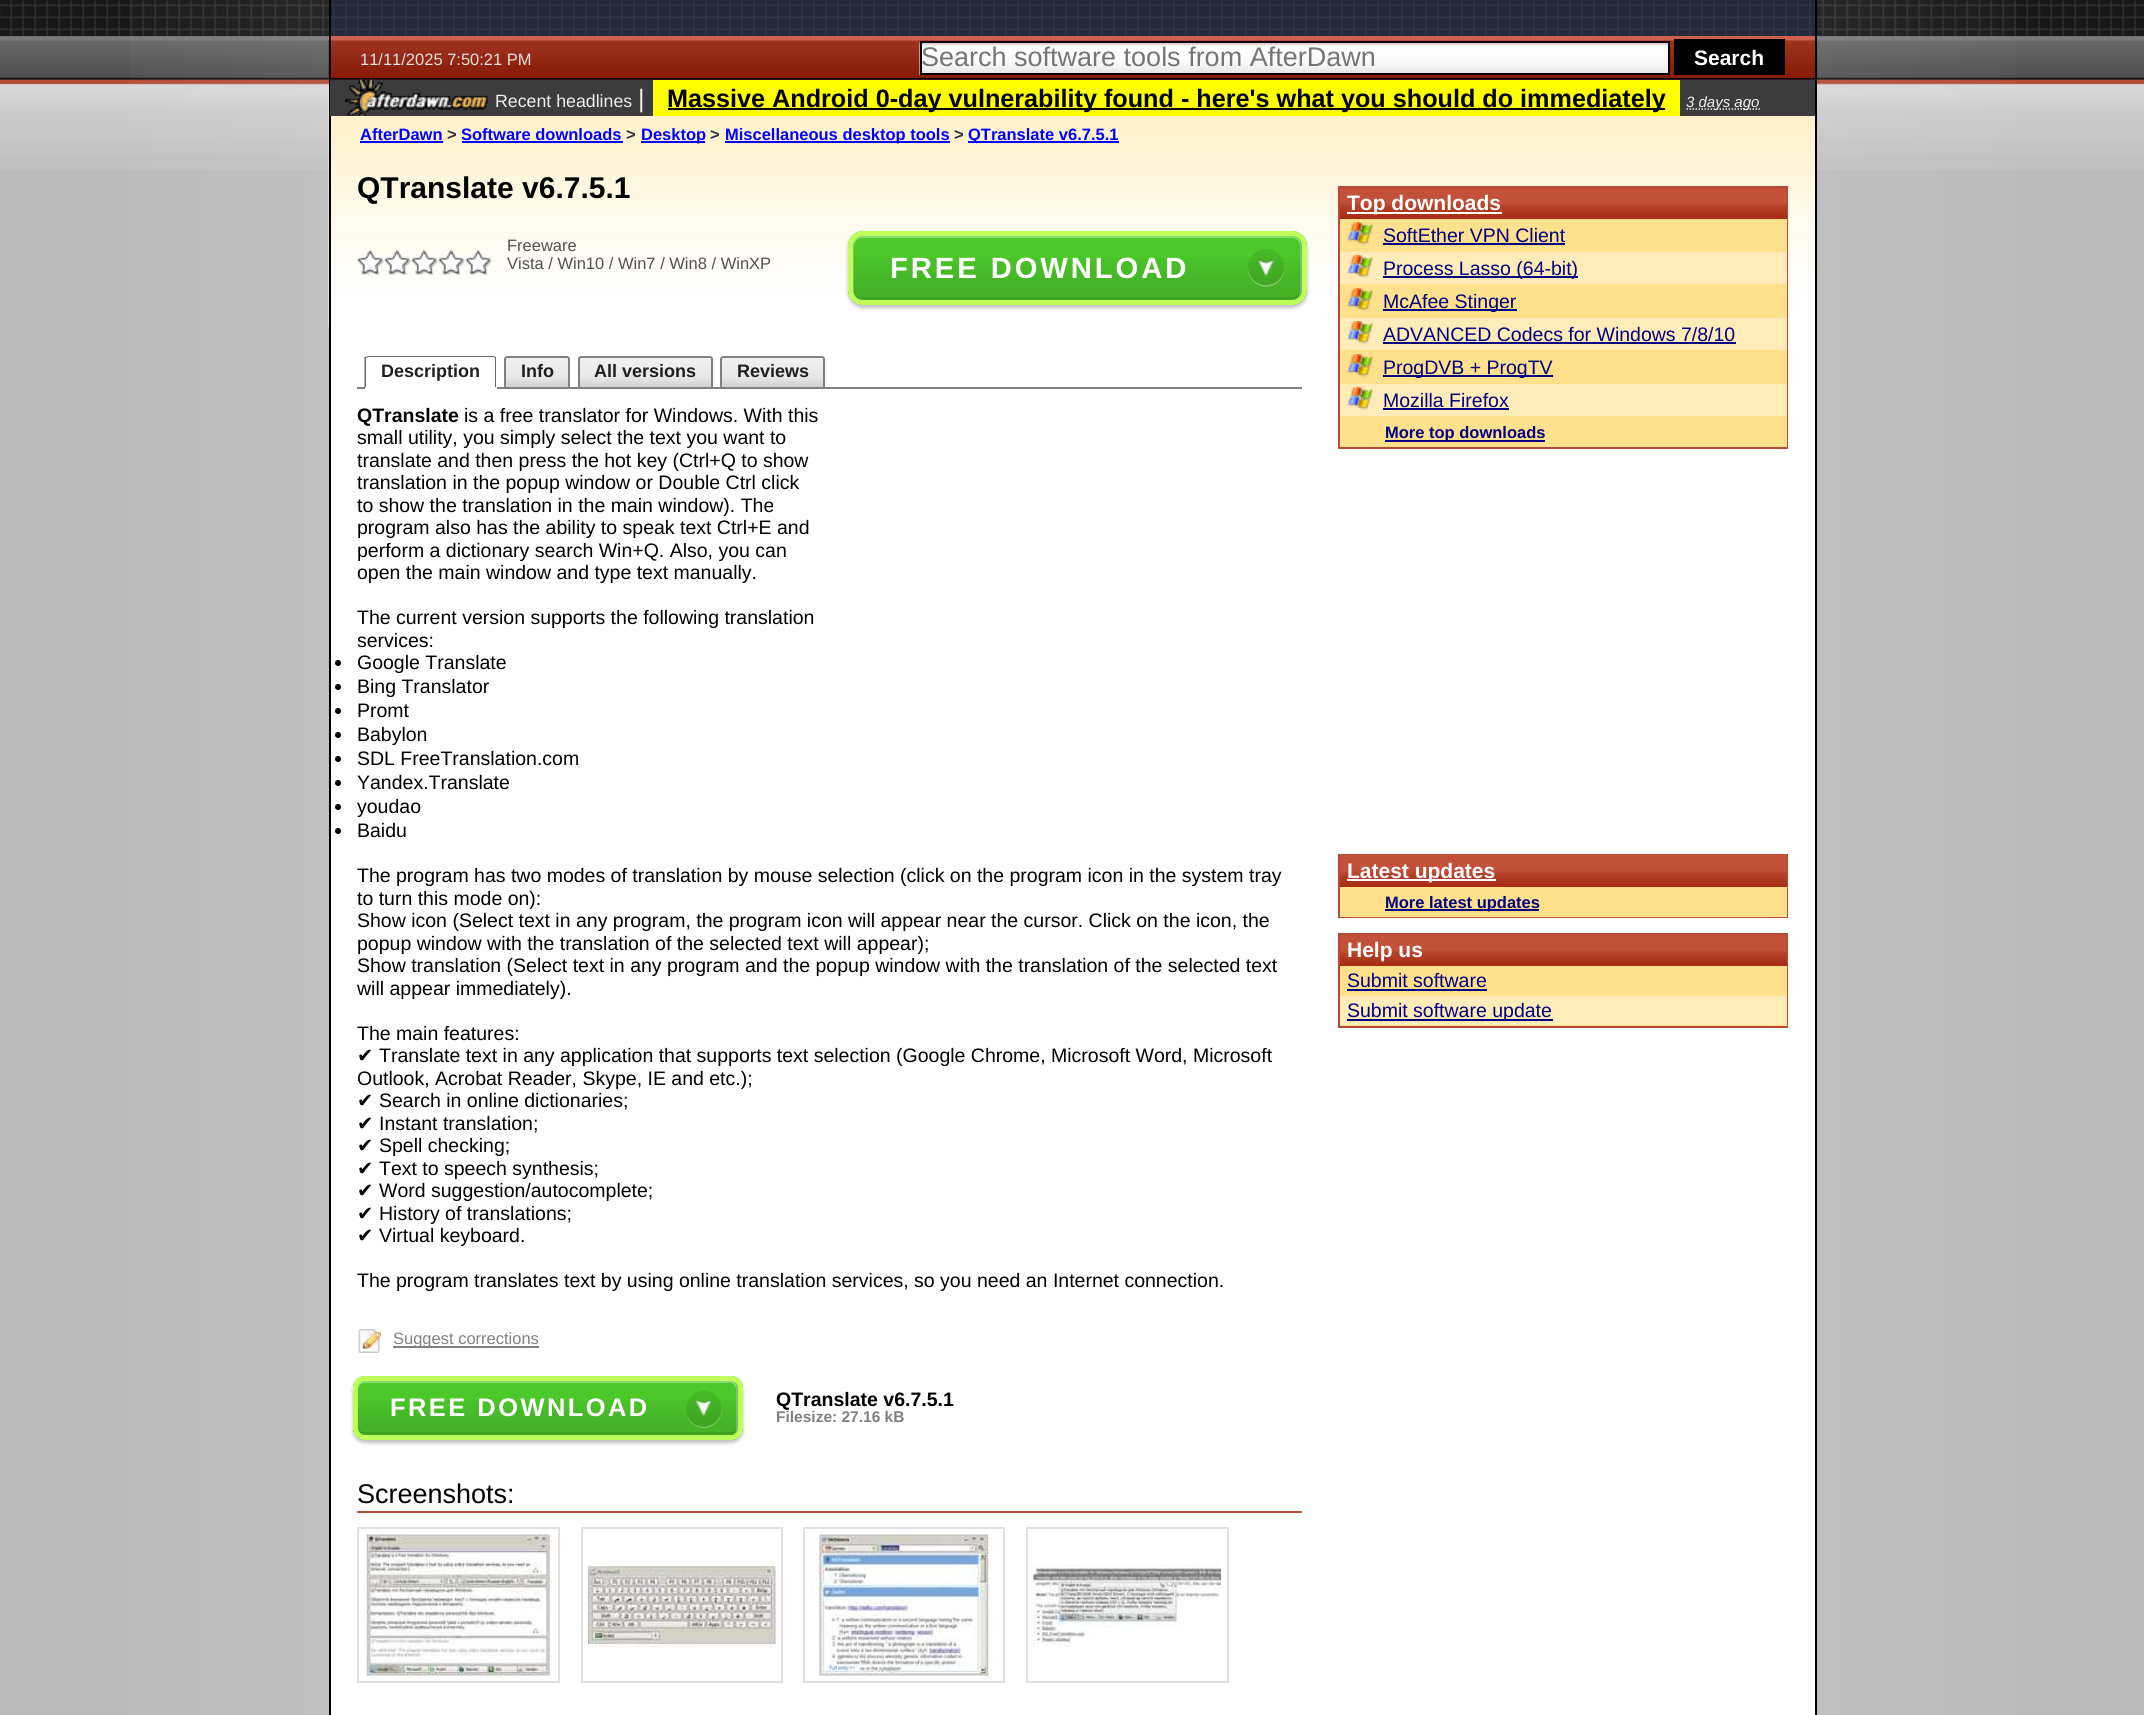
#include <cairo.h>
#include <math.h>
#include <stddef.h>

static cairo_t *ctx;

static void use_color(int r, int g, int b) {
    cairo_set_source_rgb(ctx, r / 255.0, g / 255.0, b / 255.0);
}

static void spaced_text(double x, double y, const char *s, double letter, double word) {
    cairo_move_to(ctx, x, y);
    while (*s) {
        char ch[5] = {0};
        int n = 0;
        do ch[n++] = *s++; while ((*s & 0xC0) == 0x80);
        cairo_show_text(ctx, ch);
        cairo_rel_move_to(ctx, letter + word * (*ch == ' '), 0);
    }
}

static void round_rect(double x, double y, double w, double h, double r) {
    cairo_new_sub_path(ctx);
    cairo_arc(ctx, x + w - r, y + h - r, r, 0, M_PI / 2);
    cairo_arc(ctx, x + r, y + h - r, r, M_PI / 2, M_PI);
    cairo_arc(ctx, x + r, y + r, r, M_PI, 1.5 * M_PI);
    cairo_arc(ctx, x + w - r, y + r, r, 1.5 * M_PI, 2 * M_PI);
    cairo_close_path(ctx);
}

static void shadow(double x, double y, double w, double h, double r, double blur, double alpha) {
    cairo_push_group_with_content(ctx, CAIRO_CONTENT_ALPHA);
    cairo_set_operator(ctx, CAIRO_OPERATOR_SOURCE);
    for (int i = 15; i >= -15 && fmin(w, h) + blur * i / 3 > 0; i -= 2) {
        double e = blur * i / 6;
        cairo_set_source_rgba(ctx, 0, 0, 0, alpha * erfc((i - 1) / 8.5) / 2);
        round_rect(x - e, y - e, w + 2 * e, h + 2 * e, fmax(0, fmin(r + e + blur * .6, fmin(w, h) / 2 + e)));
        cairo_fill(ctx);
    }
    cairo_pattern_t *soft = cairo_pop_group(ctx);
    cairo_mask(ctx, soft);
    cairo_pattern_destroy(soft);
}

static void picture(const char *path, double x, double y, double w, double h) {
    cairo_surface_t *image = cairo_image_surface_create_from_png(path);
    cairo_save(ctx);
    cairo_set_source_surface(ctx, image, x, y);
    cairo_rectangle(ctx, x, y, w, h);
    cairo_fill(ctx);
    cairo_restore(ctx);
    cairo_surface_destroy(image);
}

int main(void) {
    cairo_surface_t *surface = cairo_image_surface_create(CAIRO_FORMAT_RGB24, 2144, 1715);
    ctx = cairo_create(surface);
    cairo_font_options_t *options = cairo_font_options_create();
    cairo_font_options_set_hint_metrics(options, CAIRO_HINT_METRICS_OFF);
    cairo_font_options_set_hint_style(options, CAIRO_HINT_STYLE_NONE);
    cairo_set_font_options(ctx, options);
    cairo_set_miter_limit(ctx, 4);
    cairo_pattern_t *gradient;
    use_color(24, 24, 24);
    cairo_paint(ctx);
    picture("img2.png", 0, 0, 2144, 36);
    use_color(66, 66, 66);
    cairo_rectangle(ctx, 0, 36, 2144, 44);
    cairo_fill(ctx);
    picture("img5.png", 0, 36, 2144, 44);
    use_color(186, 186, 186);
    cairo_rectangle(ctx, 0, 170, 2144, 1545);
    cairo_fill(ctx);
    picture("img8.png", 0, 79, 2144, 91);
    picture("img1.png", 129, 0, 1887, 1715);
    use_color(49, 55, 79);
    cairo_rectangle(ctx, 331, 0, 1484, 36);
    cairo_fill(ctx);
    picture("img3.png", 328, 0, 1487, 36);
    use_color(0, 0, 0);
    cairo_rectangle(ctx, 1815, 0, 2, 80);
    cairo_fill(ctx);
    cairo_rectangle(ctx, 329, 0, 2, 36);
    cairo_fill(ctx);
    picture("img4.png", 331, 0, 1484, 36);
    picture("img6.png", 328, 36, 1487, 44);
    cairo_rectangle(ctx, 329, 78, 1488, 2);
    cairo_fill(ctx);
    cairo_rectangle(ctx, 329, 36, 2, 44);
    cairo_fill(ctx);
    cairo_select_font_face(ctx, "Liberation Sans", CAIRO_FONT_SLANT_NORMAL, CAIRO_FONT_WEIGHT_NORMAL);
    cairo_set_font_size(ctx, 16.5);
    use_color(224, 224, 224);
    cairo_move_to(ctx, 360, 65);
    cairo_show_text(ctx, "11/11/2025 7:50:21 PM");
    picture("img7.png", 919, 42, 749, 33);
    cairo_rectangle(ctx, 921, 42, 748, 32);
    use_color(0, 0, 0);
    cairo_stroke(ctx);
    cairo_set_font_size(ctx, 27);
    use_color(117, 117, 117);
    cairo_move_to(ctx, 921, 66);
    cairo_show_text(ctx, "Search software tools from AfterDawn");
    use_color(0, 0, 0);
    cairo_rectangle(ctx, 1674, 39, 111, 36);
    cairo_fill(ctx);
    cairo_select_font_face(ctx, "Liberation Sans", CAIRO_FONT_SLANT_NORMAL, CAIRO_FONT_WEIGHT_BOLD);
    cairo_set_font_size(ctx, 21);
    use_color(255, 255, 255);
    cairo_move_to(ctx, 1694, 65);
    cairo_show_text(ctx, "Search");
    cairo_rectangle(ctx, 331, 327, 1484, 1388);
    cairo_fill(ctx);
    picture("img9.png", 328, 79, 1489, 248);
    use_color(0, 0, 0);
    cairo_rectangle(ctx, 1815, 80, 2, 1635);
    cairo_fill(ctx);
    cairo_rectangle(ctx, 329, 80, 2, 1635);
    cairo_fill(ctx);
    use_color(60, 60, 60);
    cairo_rectangle(ctx, 330, 80, 1485, 36);
    cairo_fill(ctx);
    picture("img10.png", 345, 79, 143, 37);
    cairo_select_font_face(ctx, "Liberation Sans", CAIRO_FONT_SLANT_NORMAL, CAIRO_FONT_WEIGHT_NORMAL);
    cairo_set_font_size(ctx, 17.75);
    use_color(238, 238, 238);
    cairo_move_to(ctx, 495, 107);
    cairo_show_text(ctx, "Recent headlines");
    cairo_set_font_size(ctx, 25.2);
    cairo_move_to(ctx, 638, 107);
    cairo_show_text(ctx, "|");
    use_color(255, 255, 0);
    cairo_rectangle(ctx, 653, 80, 1027, 36);
    cairo_fill(ctx);
    use_color(0, 0, 0);
    cairo_rectangle(ctx, 668, 108, 997, 2);
    cairo_fill(ctx);
    cairo_select_font_face(ctx, "Liberation Sans", CAIRO_FONT_SLANT_NORMAL, CAIRO_FONT_WEIGHT_BOLD);
    cairo_move_to(ctx, 667, 107);
    cairo_show_text(ctx, "Massive Android 0-day vulnerability found - here's what you should do immediately");
    cairo_new_path(ctx);
    cairo_move_to(ctx, 1686.5, 109);
    cairo_line_to(ctx, 1760.5, 109);
    use_color(238, 238, 238);
    cairo_set_line_width(ctx, 1.5);
    cairo_set_dash(ctx, (double[]){1.5, 1.5}, 2, 0);
    cairo_stroke(ctx);
    cairo_select_font_face(ctx, "Liberation Sans", CAIRO_FONT_SLANT_ITALIC, CAIRO_FONT_WEIGHT_NORMAL);
    cairo_set_font_size(ctx, 15);
    cairo_move_to(ctx, 1686, 107);
    cairo_show_text(ctx, "3 days ago");
    cairo_select_font_face(ctx, "Liberation Sans", CAIRO_FONT_SLANT_NORMAL, CAIRO_FONT_WEIGHT_BOLD);
    cairo_set_font_size(ctx, 16.5);
    use_color(0, 0, 255);
    cairo_move_to(ctx, 360, 140);
    cairo_show_text(ctx, "AfterDawn");
    cairo_rectangle(ctx, 360, 141, 83, 2);
    cairo_fill(ctx);
    use_color(48, 48, 61);
    cairo_move_to(ctx, 447, 140);
    cairo_show_text(ctx, ">");
    use_color(0, 0, 255);
    cairo_move_to(ctx, 461, 140);
    cairo_show_text(ctx, "Software downloads");
    cairo_rectangle(ctx, 462, 141, 161, 2);
    cairo_fill(ctx);
    use_color(48, 48, 61);
    cairo_move_to(ctx, 626, 140);
    cairo_show_text(ctx, ">");
    use_color(0, 0, 255);
    cairo_rectangle(ctx, 641, 141, 64, 2);
    cairo_fill(ctx);
    cairo_move_to(ctx, 641, 140);
    cairo_show_text(ctx, "Desktop");
    use_color(48, 48, 61);
    cairo_move_to(ctx, 710, 140);
    cairo_show_text(ctx, ">");
    use_color(0, 0, 255);
    cairo_rectangle(ctx, 725, 141, 225, 2);
    cairo_fill(ctx);
    cairo_move_to(ctx, 725, 140);
    cairo_show_text(ctx, "Miscellaneous desktop tools");
    use_color(48, 48, 61);
    cairo_move_to(ctx, 954, 140);
    cairo_show_text(ctx, ">");
    use_color(0, 0, 255);
    cairo_rectangle(ctx, 968, 141, 151, 2);
    cairo_fill(ctx);
    cairo_move_to(ctx, 968, 140);
    cairo_show_text(ctx, "QTranslate v6.7.5.1");
    cairo_set_font_size(ctx, 30);
    use_color(0, 0, 0);
    cairo_move_to(ctx, 357, 198);
    cairo_show_text(ctx, "QTranslate v6.7.5.1");
    picture("img11.png", 357, 250, 27, 25);
    picture("img11.png", 384, 250, 27, 25);
    picture("img11.png", 411, 250, 27, 25);
    picture("img11.png", 438, 250, 27, 25);
    picture("img11.png", 465, 250, 27, 25);
    cairo_select_font_face(ctx, "Liberation Sans", CAIRO_FONT_SLANT_NORMAL, CAIRO_FONT_WEIGHT_NORMAL);
    cairo_set_font_size(ctx, 16.5);
    use_color(80, 80, 80);
    cairo_move_to(ctx, 507, 251);
    cairo_show_text(ctx, "Freeware");
    cairo_move_to(ctx, 507, 269);
    cairo_show_text(ctx, "Vista / Win10 / Win7 / Win8 / WinXP");
    use_color(0, 0, 0);
    shadow(848, 234, 459, 74, 15, 2, 0.25);
    use_color(76, 200, 42);
    round_rect(848, 231, 459, 74, 15);
    cairo_fill(ctx);
    cairo_save(ctx);
    round_rect(848, 231, 459, 74, 15);
    cairo_clip(ctx);
    gradient = cairo_pattern_create_linear(1077, 235, 1077, 300);
    cairo_pattern_add_color_stop_rgba(gradient, 0, 0, 0, 0, 0);
    cairo_pattern_add_color_stop_rgba(gradient, 0.25, 0, 0, 0, 0);
    cairo_pattern_add_color_stop_rgba(gradient, 0.75, 0, 0, 0, 0.1);
    cairo_pattern_add_color_stop_rgba(gradient, 1, 0, 0, 0, 0.1);
    cairo_set_source(ctx, gradient);
    cairo_pattern_destroy(gradient);
    cairo_rectangle(ctx, 848, 258, 459, 42);
    cairo_fill(ctx);
    cairo_restore(ctx);
    cairo_set_source_rgba(ctx, 1, 1, 1, 0.35);
    cairo_new_path(ctx);
    cairo_move_to(ctx, 862, 238);
    cairo_line_to(ctx, 1292, 238);
    cairo_curve_to(ctx, 1297, 238, 1300, 242, 1300, 247);
    cairo_line_to(ctx, 1300, 291);
    cairo_curve_to(ctx, 1300, 294, 1299, 296, 1297, 298);
    cairo_curve_to(ctx, 1300, 296, 1302, 293, 1302, 289);
    cairo_line_to(ctx, 1302, 247);
    cairo_curve_to(ctx, 1302, 241, 1297, 236, 1291, 236);
    cairo_line_to(ctx, 863, 236);
    cairo_curve_to(ctx, 857, 236, 852, 241, 852, 247);
    cairo_line_to(ctx, 852, 289);
    cairo_curve_to(ctx, 852, 293, 854, 296, 857, 298);
    cairo_curve_to(ctx, 855, 296, 854, 294, 854, 291);
    cairo_line_to(ctx, 854, 247);
    cairo_curve_to(ctx, 854, 242, 857, 238, 862, 238);
    cairo_close_path(ctx);
    cairo_fill(ctx);
    cairo_set_source_rgba(ctx, 0, 0, 0, 0.1);
    cairo_new_path(ctx);
    cairo_move_to(ctx, 1299, 239);
    cairo_curve_to(ctx, 1300, 240, 1300, 242, 1300, 244);
    cairo_line_to(ctx, 1300, 288);
    cairo_curve_to(ctx, 1300, 293, 1297, 297, 1292, 297);
    cairo_line_to(ctx, 862, 297);
    cairo_curve_to(ctx, 857, 297, 854, 293, 854, 288);
    cairo_line_to(ctx, 854, 244);
    cairo_curve_to(ctx, 854, 242, 854, 240, 855, 239);
    cairo_curve_to(ctx, 853, 241, 852, 244, 852, 247);
    cairo_line_to(ctx, 852, 289);
    cairo_curve_to(ctx, 852, 295, 857, 300, 863, 300);
    cairo_line_to(ctx, 1291, 300);
    cairo_curve_to(ctx, 1297, 300, 1302, 295, 1302, 289);
    cairo_line_to(ctx, 1302, 247);
    cairo_curve_to(ctx, 1302, 244, 1301, 241, 1299, 239);
    cairo_close_path(ctx);
    cairo_fill(ctx);
    round_rect(850.5, 233.5, 454, 69, 12.5);
    use_color(192, 254, 91);
    cairo_set_line_width(ctx, 5);
    cairo_set_dash(ctx, NULL, 0, 0);
    cairo_stroke(ctx);
    cairo_select_font_face(ctx, "Liberation Sans", CAIRO_FONT_SLANT_NORMAL, CAIRO_FONT_WEIGHT_BOLD);
    cairo_set_font_size(ctx, 29.25);
    use_color(255, 255, 255);
    spaced_text(890, 278, "FREE DOWNLOAD", 2.9, 0);
    cairo_set_source_rgba(ctx, 1, 1, 1, 0.25);
    cairo_new_path(ctx);
    cairo_move_to(ctx, 1284, 268);
    cairo_curve_to(ctx, 1282.5, 290.5, 1249.5, 290.5, 1248, 268);
    cairo_curve_to(ctx, 1247, 286, 1271, 294, 1281, 279);
    cairo_curve_to(ctx, 1283, 276, 1284, 272, 1284, 268);
    cairo_close_path(ctx);
    cairo_fill(ctx);
    cairo_set_source_rgba(ctx, 0, 0, 0, 0.08);
    cairo_arc(ctx, 1266, 267, 18, 0, 2 * M_PI);
    cairo_fill(ctx);
    picture("img12.png", 1258, 259, 16, 17);
    use_color(128, 128, 128);
    cairo_rectangle(ctx, 357, 387, 945, 2);
    cairo_fill(ctx);
    use_color(255, 255, 255);
    cairo_new_path(ctx);
    cairo_move_to(ctx, 368, 356);
    cairo_line_to(ctx, 494, 356);
    cairo_curve_to(ctx, 495.5, 356, 497, 357.5, 497, 359);
    cairo_line_to(ctx, 497, 389);
    cairo_line_to(ctx, 365, 389);
    cairo_line_to(ctx, 365, 359);
    cairo_curve_to(ctx, 365, 357.5, 366.5, 356, 368, 356);
    cairo_close_path(ctx);
    cairo_fill(ctx);
    use_color(105, 105, 105);
    cairo_new_path(ctx);
    cairo_move_to(ctx, 368, 356);
    cairo_line_to(ctx, 366, 357);
    cairo_line_to(ctx, 367, 358);
    cairo_line_to(ctx, 368, 357);
    cairo_line_to(ctx, 494, 357);
    cairo_line_to(ctx, 494, 358);
    cairo_line_to(ctx, 495, 357);
    cairo_line_to(ctx, 494, 356);
    cairo_close_path(ctx);
    cairo_fill(ctx);
    cairo_new_path(ctx);
    cairo_move_to(ctx, 496, 388);
    cairo_line_to(ctx, 496, 358);
    cairo_line_to(ctx, 495.5, 356.5);
    cairo_line_to(ctx, 494.5, 357.5);
    cairo_line_to(ctx, 495, 358);
    cairo_line_to(ctx, 495, 387);
    cairo_close_path(ctx);
    cairo_fill(ctx);
    use_color(255, 255, 255);
    cairo_new_path(ctx);
    cairo_move_to(ctx, 496, 388);
    cairo_line_to(ctx, 495, 387);
    cairo_line_to(ctx, 366, 387);
    cairo_line_to(ctx, 365, 388);
    cairo_close_path(ctx);
    cairo_fill(ctx);
    use_color(105, 105, 105);
    cairo_new_path(ctx);
    cairo_move_to(ctx, 364.5, 357);
    cairo_line_to(ctx, 365.5, 356.5);
    cairo_line_to(ctx, 366.5, 357.5);
    cairo_line_to(ctx, 366, 358);
    cairo_line_to(ctx, 366, 387);
    cairo_line_to(ctx, 365, 388);
    cairo_line_to(ctx, 364.5, 388);
    cairo_close_path(ctx);
    cairo_fill(ctx);
    cairo_set_font_size(ctx, 18);
    use_color(32, 32, 32);
    cairo_move_to(ctx, 381, 377);
    cairo_show_text(ctx, "Description");
    cairo_save(ctx);
    cairo_new_path(ctx);
    cairo_move_to(ctx, 507, 356);
    cairo_line_to(ctx, 567, 356);
    cairo_curve_to(ctx, 568.5, 356, 570, 357.5, 570, 359);
    cairo_line_to(ctx, 570, 389);
    cairo_line_to(ctx, 504, 389);
    cairo_line_to(ctx, 504, 359);
    cairo_curve_to(ctx, 504, 357.5, 505.5, 356, 507, 356);
    cairo_close_path(ctx);
    cairo_clip(ctx);
    gradient = cairo_pattern_create_linear(537, 357, 537, 387);
    cairo_pattern_add_color_stop_rgba(gradient, 0, 0.949, 0.949, 0.949, 1);
    cairo_pattern_add_color_stop_rgba(gradient, 0.7, 0.902, 0.902, 0.902, 1);
    cairo_pattern_add_color_stop_rgba(gradient, 1, 0.816, 0.816, 0.816, 1);
    cairo_set_source(ctx, gradient);
    cairo_pattern_destroy(gradient);
    cairo_rectangle(ctx, 504, 357, 66, 30);
    cairo_fill(ctx);
    cairo_restore(ctx);
    cairo_new_path(ctx);
    cairo_move_to(ctx, 507, 357);
    cairo_line_to(ctx, 567, 357);
    cairo_curve_to(ctx, 568, 357, 569, 358, 569, 359);
    cairo_line_to(ctx, 569, 388);
    cairo_line_to(ctx, 505, 388);
    cairo_line_to(ctx, 505, 359);
    cairo_curve_to(ctx, 505, 358, 506, 357, 507, 357);
    cairo_close_path(ctx);
    use_color(128, 128, 128);
    cairo_set_line_width(ctx, 2);
    cairo_stroke(ctx);
    use_color(32, 32, 32);
    cairo_move_to(ctx, 521, 377);
    cairo_show_text(ctx, "Info");
    cairo_save(ctx);
    cairo_new_path(ctx);
    cairo_move_to(ctx, 581, 356);
    cairo_line_to(ctx, 710, 356);
    cairo_curve_to(ctx, 711.5, 356, 713, 357.5, 713, 359);
    cairo_line_to(ctx, 713, 389);
    cairo_line_to(ctx, 578, 389);
    cairo_line_to(ctx, 578, 359);
    cairo_curve_to(ctx, 578, 357.5, 579.5, 356, 581, 356);
    cairo_close_path(ctx);
    cairo_clip(ctx);
    gradient = cairo_pattern_create_linear(645, 357, 645, 387);
    cairo_pattern_add_color_stop_rgba(gradient, 0, 0.949, 0.949, 0.949, 1);
    cairo_pattern_add_color_stop_rgba(gradient, 0.7, 0.902, 0.902, 0.902, 1);
    cairo_pattern_add_color_stop_rgba(gradient, 1, 0.816, 0.816, 0.816, 1);
    cairo_set_source(ctx, gradient);
    cairo_pattern_destroy(gradient);
    cairo_rectangle(ctx, 578, 357, 135, 30);
    cairo_fill(ctx);
    cairo_restore(ctx);
    cairo_new_path(ctx);
    cairo_move_to(ctx, 581, 357);
    cairo_line_to(ctx, 710, 357);
    cairo_curve_to(ctx, 711, 357, 712, 358, 712, 359);
    cairo_line_to(ctx, 712, 388);
    cairo_line_to(ctx, 579, 388);
    cairo_line_to(ctx, 579, 359);
    cairo_curve_to(ctx, 579, 358, 580, 357, 581, 357);
    cairo_close_path(ctx);
    use_color(128, 128, 128);
    cairo_stroke(ctx);
    use_color(32, 32, 32);
    cairo_move_to(ctx, 594, 377);
    cairo_show_text(ctx, "All versions");
    cairo_save(ctx);
    cairo_new_path(ctx);
    cairo_move_to(ctx, 723, 356);
    cairo_line_to(ctx, 822, 356);
    cairo_curve_to(ctx, 823.5, 356, 825, 357.5, 825, 359);
    cairo_line_to(ctx, 825, 389);
    cairo_line_to(ctx, 720, 389);
    cairo_line_to(ctx, 720, 359);
    cairo_curve_to(ctx, 720, 357.5, 721.5, 356, 723, 356);
    cairo_close_path(ctx);
    cairo_clip(ctx);
    gradient = cairo_pattern_create_linear(773, 357, 773, 387);
    cairo_pattern_add_color_stop_rgba(gradient, 0, 0.949, 0.949, 0.949, 1);
    cairo_pattern_add_color_stop_rgba(gradient, 0.7, 0.902, 0.902, 0.902, 1);
    cairo_pattern_add_color_stop_rgba(gradient, 1, 0.816, 0.816, 0.816, 1);
    cairo_set_source(ctx, gradient);
    cairo_pattern_destroy(gradient);
    cairo_rectangle(ctx, 720, 357, 105, 30);
    cairo_fill(ctx);
    cairo_restore(ctx);
    cairo_new_path(ctx);
    cairo_move_to(ctx, 723, 357);
    cairo_line_to(ctx, 822, 357);
    cairo_curve_to(ctx, 823, 357, 824, 358, 824, 359);
    cairo_line_to(ctx, 824, 388);
    cairo_line_to(ctx, 721, 388);
    cairo_line_to(ctx, 721, 359);
    cairo_curve_to(ctx, 721, 358, 722, 357, 723, 357);
    cairo_close_path(ctx);
    use_color(128, 128, 128);
    cairo_stroke(ctx);
    use_color(32, 32, 32);
    cairo_move_to(ctx, 737, 377);
    cairo_show_text(ctx, "Reviews");
    cairo_set_font_size(ctx, 19.5);
    use_color(0, 0, 0);
    cairo_move_to(ctx, 357, 422);
    cairo_show_text(ctx, "QTranslate");
    cairo_select_font_face(ctx, "Liberation Sans", CAIRO_FONT_SLANT_NORMAL, CAIRO_FONT_WEIGHT_NORMAL);
    cairo_move_to(ctx, 464, 422);
    cairo_show_text(ctx, "is a free translator for Windows. With this");
    cairo_move_to(ctx, 357, 444);
    cairo_show_text(ctx, "small utility, you simply select the text you want to");
    cairo_move_to(ctx, 357, 467);
    cairo_show_text(ctx, "translate and then press the hot key (Ctrl+Q to show");
    cairo_move_to(ctx, 357, 489);
    cairo_show_text(ctx, "translation in the popup window or Double Ctrl click");
    cairo_move_to(ctx, 357, 512);
    cairo_show_text(ctx, "to show the translation in the main window). The");
    cairo_move_to(ctx, 357, 534);
    cairo_show_text(ctx, "program also has the ability to speak text Ctrl+E and");
    cairo_move_to(ctx, 357, 557);
    cairo_show_text(ctx, "perform a dictionary search Win+Q. Also, you can");
    cairo_move_to(ctx, 357, 579);
    cairo_show_text(ctx, "open the main window and type text manually.");
    cairo_move_to(ctx, 357, 624);
    cairo_show_text(ctx, "The current version supports the following translation");
    cairo_move_to(ctx, 357, 647);
    cairo_show_text(ctx, "services:");
    cairo_new_path(ctx);
    cairo_arc(ctx, 338, 663, 3, 0, 2 * M_PI);
    cairo_fill(ctx);
    cairo_move_to(ctx, 357, 669);
    cairo_show_text(ctx, "Google Translate");
    cairo_new_path(ctx);
    cairo_arc(ctx, 338, 687, 3, 0, 2 * M_PI);
    cairo_fill(ctx);
    cairo_move_to(ctx, 357, 693);
    cairo_show_text(ctx, "Bing Translator");
    cairo_new_path(ctx);
    cairo_arc(ctx, 338, 711, 3, 0, 2 * M_PI);
    cairo_fill(ctx);
    cairo_move_to(ctx, 357, 717);
    cairo_show_text(ctx, "Promt");
    cairo_new_path(ctx);
    cairo_arc(ctx, 338, 735, 3, 0, 2 * M_PI);
    cairo_fill(ctx);
    cairo_move_to(ctx, 357, 741);
    cairo_show_text(ctx, "Babylon");
    cairo_new_path(ctx);
    cairo_arc(ctx, 338, 759, 3, 0, 2 * M_PI);
    cairo_fill(ctx);
    cairo_move_to(ctx, 357, 765);
    cairo_show_text(ctx, "SDL FreeTranslation.com");
    cairo_new_path(ctx);
    cairo_arc(ctx, 338, 783, 3, 0, 2 * M_PI);
    cairo_fill(ctx);
    cairo_move_to(ctx, 357, 789);
    cairo_show_text(ctx, "Yandex.Translate");
    cairo_new_path(ctx);
    cairo_arc(ctx, 338, 807, 3, 0, 2 * M_PI);
    cairo_fill(ctx);
    cairo_move_to(ctx, 357, 813);
    cairo_show_text(ctx, "youdao");
    cairo_new_path(ctx);
    cairo_arc(ctx, 338, 831, 3, 0, 2 * M_PI);
    cairo_fill(ctx);
    cairo_move_to(ctx, 357, 837);
    cairo_show_text(ctx, "Baidu");
    cairo_move_to(ctx, 357, 882);
    cairo_show_text(ctx, "The program has two modes of translation by mouse selection (click on the program icon in the system tray");
    cairo_move_to(ctx, 357, 905);
    cairo_show_text(ctx, "to turn this mode on):");
    cairo_move_to(ctx, 357, 927);
    cairo_show_text(ctx, "Show icon (Select text in any program, the program icon will appear near the cursor. Click on the icon, the");
    cairo_move_to(ctx, 357, 950);
    cairo_show_text(ctx, "popup window with the translation of the selected text will appear);");
    cairo_move_to(ctx, 357, 972);
    cairo_show_text(ctx, "Show translation (Select text in any program and the popup window with the translation of the selected text");
    cairo_move_to(ctx, 357, 995);
    cairo_show_text(ctx, "will appear immediately).");
    cairo_move_to(ctx, 357, 1040);
    cairo_show_text(ctx, "The main features:");
    cairo_select_font_face(ctx, "DejaVu Sans", CAIRO_FONT_SLANT_NORMAL, CAIRO_FONT_WEIGHT_NORMAL);
    cairo_move_to(ctx, 357, 1062);
    cairo_show_text(ctx, "✔");
    cairo_select_font_face(ctx, "Liberation Sans", CAIRO_FONT_SLANT_NORMAL, CAIRO_FONT_WEIGHT_NORMAL);
    cairo_move_to(ctx, 379, 1062);
    cairo_show_text(ctx, "Translate text in any application that supports text selection (Google Chrome, Microsoft Word, Microsoft");
    cairo_move_to(ctx, 357, 1085);
    cairo_show_text(ctx, "Outlook, Acrobat Reader, Skype, IE and etc.);");
    cairo_select_font_face(ctx, "DejaVu Sans", CAIRO_FONT_SLANT_NORMAL, CAIRO_FONT_WEIGHT_NORMAL);
    cairo_move_to(ctx, 357, 1107);
    cairo_show_text(ctx, "✔");
    cairo_select_font_face(ctx, "Liberation Sans", CAIRO_FONT_SLANT_NORMAL, CAIRO_FONT_WEIGHT_NORMAL);
    cairo_move_to(ctx, 379, 1107);
    cairo_show_text(ctx, "Search in online dictionaries;");
    cairo_select_font_face(ctx, "DejaVu Sans", CAIRO_FONT_SLANT_NORMAL, CAIRO_FONT_WEIGHT_NORMAL);
    cairo_move_to(ctx, 357, 1130);
    cairo_show_text(ctx, "✔");
    cairo_select_font_face(ctx, "Liberation Sans", CAIRO_FONT_SLANT_NORMAL, CAIRO_FONT_WEIGHT_NORMAL);
    cairo_move_to(ctx, 379, 1130);
    cairo_show_text(ctx, "Instant translation;");
    cairo_select_font_face(ctx, "DejaVu Sans", CAIRO_FONT_SLANT_NORMAL, CAIRO_FONT_WEIGHT_NORMAL);
    cairo_move_to(ctx, 357, 1152);
    cairo_show_text(ctx, "✔");
    cairo_select_font_face(ctx, "Liberation Sans", CAIRO_FONT_SLANT_NORMAL, CAIRO_FONT_WEIGHT_NORMAL);
    cairo_move_to(ctx, 379, 1152);
    cairo_show_text(ctx, "Spell checking;");
    cairo_select_font_face(ctx, "DejaVu Sans", CAIRO_FONT_SLANT_NORMAL, CAIRO_FONT_WEIGHT_NORMAL);
    cairo_move_to(ctx, 357, 1175);
    cairo_show_text(ctx, "✔");
    cairo_select_font_face(ctx, "Liberation Sans", CAIRO_FONT_SLANT_NORMAL, CAIRO_FONT_WEIGHT_NORMAL);
    cairo_move_to(ctx, 379, 1175);
    cairo_show_text(ctx, "Text to speech synthesis;");
    cairo_select_font_face(ctx, "DejaVu Sans", CAIRO_FONT_SLANT_NORMAL, CAIRO_FONT_WEIGHT_NORMAL);
    cairo_move_to(ctx, 357, 1197);
    cairo_show_text(ctx, "✔");
    cairo_select_font_face(ctx, "Liberation Sans", CAIRO_FONT_SLANT_NORMAL, CAIRO_FONT_WEIGHT_NORMAL);
    cairo_move_to(ctx, 379, 1197);
    cairo_show_text(ctx, "Word suggestion/autocomplete;");
    cairo_select_font_face(ctx, "DejaVu Sans", CAIRO_FONT_SLANT_NORMAL, CAIRO_FONT_WEIGHT_NORMAL);
    cairo_move_to(ctx, 357, 1220);
    cairo_show_text(ctx, "✔");
    cairo_select_font_face(ctx, "Liberation Sans", CAIRO_FONT_SLANT_NORMAL, CAIRO_FONT_WEIGHT_NORMAL);
    cairo_move_to(ctx, 379, 1220);
    cairo_show_text(ctx, "History of translations;");
    cairo_select_font_face(ctx, "DejaVu Sans", CAIRO_FONT_SLANT_NORMAL, CAIRO_FONT_WEIGHT_NORMAL);
    cairo_move_to(ctx, 357, 1242);
    cairo_show_text(ctx, "✔");
    cairo_select_font_face(ctx, "Liberation Sans", CAIRO_FONT_SLANT_NORMAL, CAIRO_FONT_WEIGHT_NORMAL);
    cairo_move_to(ctx, 379, 1242);
    cairo_show_text(ctx, "Virtual keyboard.");
    cairo_move_to(ctx, 357, 1287);
    cairo_show_text(ctx, "The program translates text by using online translation services, so you need an Internet connection.");
    picture("img13.png", 358, 1329, 23, 24);
    use_color(128, 128, 128);
    cairo_rectangle(ctx, 393, 1346, 146, 2);
    cairo_fill(ctx);
    cairo_set_font_size(ctx, 16.5);
    cairo_move_to(ctx, 393, 1344);
    cairo_show_text(ctx, "Suggest corrections");
    use_color(0, 0, 0);
    shadow(353, 1379, 390, 64, 12, 2, 0.25);
    use_color(76, 200, 42);
    round_rect(353, 1376, 390, 64, 12);
    cairo_fill(ctx);
    cairo_save(ctx);
    round_rect(353, 1376, 390, 64, 12);
    cairo_clip(ctx);
    gradient = cairo_pattern_create_linear(548, 1380, 548, 1436);
    cairo_pattern_add_color_stop_rgba(gradient, 0, 0, 0, 0, 0);
    cairo_pattern_add_color_stop_rgba(gradient, 0.25, 0, 0, 0, 0);
    cairo_pattern_add_color_stop_rgba(gradient, 0.75, 0, 0, 0, 0.1);
    cairo_pattern_add_color_stop_rgba(gradient, 1, 0, 0, 0, 0.1);
    cairo_set_source(ctx, gradient);
    cairo_pattern_destroy(gradient);
    cairo_rectangle(ctx, 353, 1400, 390, 36);
    cairo_fill(ctx);
    cairo_restore(ctx);
    cairo_set_source_rgba(ctx, 1, 1, 1, 0.35);
    cairo_new_path(ctx);
    cairo_move_to(ctx, 365, 1383);
    cairo_line_to(ctx, 730, 1383);
    cairo_curve_to(ctx, 734, 1383, 736, 1386, 736, 1390);
    cairo_line_to(ctx, 736, 1429);
    cairo_curve_to(ctx, 736, 1433, 734, 1436, 730, 1436);
    cairo_curve_to(ctx, 734, 1436, 738, 1432, 738, 1428);
    cairo_line_to(ctx, 738, 1388);
    cairo_curve_to(ctx, 738, 1384, 734, 1380, 730, 1380);
    cairo_line_to(ctx, 365, 1380);
    cairo_curve_to(ctx, 361, 1380, 357, 1384, 357, 1388);
    cairo_line_to(ctx, 357, 1428);
    cairo_curve_to(ctx, 357, 1432, 361, 1436, 365, 1436);
    cairo_curve_to(ctx, 361, 1436, 358, 1433, 358, 1429);
    cairo_line_to(ctx, 358, 1390);
    cairo_curve_to(ctx, 358, 1386, 361, 1383, 365, 1383);
    cairo_close_path(ctx);
    cairo_fill(ctx);
    cairo_set_source_rgba(ctx, 0, 0, 0, 0.1);
    cairo_new_path(ctx);
    cairo_move_to(ctx, 365, 1380);
    cairo_curve_to(ctx, 361, 1380, 357, 1384, 357, 1388);
    cairo_line_to(ctx, 357, 1428);
    cairo_curve_to(ctx, 357, 1432, 361, 1436, 365, 1436);
    cairo_line_to(ctx, 730, 1436);
    cairo_curve_to(ctx, 734, 1436, 738, 1432, 738, 1428);
    cairo_line_to(ctx, 738, 1388);
    cairo_curve_to(ctx, 738, 1384, 734, 1380, 730, 1380);
    cairo_curve_to(ctx, 734, 1380, 736, 1383, 736, 1387);
    cairo_line_to(ctx, 736, 1426);
    cairo_curve_to(ctx, 736, 1430, 734, 1432, 730, 1432);
    cairo_line_to(ctx, 365, 1432);
    cairo_curve_to(ctx, 361, 1432, 358, 1430, 358, 1426);
    cairo_line_to(ctx, 358, 1387);
    cairo_curve_to(ctx, 358, 1383, 361, 1380, 365, 1380);
    cairo_close_path(ctx);
    cairo_fill(ctx);
    round_rect(355.5, 1378.5, 385, 59, 9.5);
    use_color(192, 254, 91);
    cairo_set_line_width(ctx, 5);
    cairo_stroke(ctx);
    cairo_select_font_face(ctx, "Liberation Sans", CAIRO_FONT_SLANT_NORMAL, CAIRO_FONT_WEIGHT_BOLD);
    cairo_set_font_size(ctx, 25.4);
    use_color(255, 255, 255);
    spaced_text(390, 1416, "FREE DOWNLOAD", 2.5, 0);
    cairo_set_source_rgba(ctx, 1, 1, 1, 0.25);
    cairo_new_path(ctx);
    cairo_move_to(ctx, 686.5, 1415);
    cairo_curve_to(ctx, 687.5, 1418.5, 690, 1422, 693, 1424.5);
    cairo_curve_to(ctx, 707.5, 1435.5, 727, 1420, 721, 1403.5);
    cairo_curve_to(ctx, 725.5, 1419.5, 707, 1433, 693, 1423.5);
    cairo_curve_to(ctx, 690.5, 1421, 688, 1418.5, 686.5, 1415);
    cairo_close_path(ctx);
    cairo_fill(ctx);
    cairo_set_source_rgba(ctx, 0, 0, 0, 0.08);
    cairo_arc(ctx, 704, 1409, 18, 0, 2 * M_PI);
    cairo_fill(ctx);
    picture("img14.png", 696, 1399, 15, 17);
    cairo_set_font_size(ctx, 19.5);
    use_color(0, 0, 0);
    cairo_move_to(ctx, 776, 1406);
    cairo_show_text(ctx, "QTranslate v6.7.5.1");
    cairo_set_font_size(ctx, 15.5);
    use_color(128, 128, 128);
    cairo_move_to(ctx, 776, 1422);
    cairo_show_text(ctx, "Filesize: 27.16 kB");
    use_color(181, 75, 54);
    cairo_rectangle(ctx, 357, 1511, 945, 2);
    cairo_fill(ctx);
    cairo_select_font_face(ctx, "Liberation Sans", CAIRO_FONT_SLANT_NORMAL, CAIRO_FONT_WEIGHT_NORMAL);
    cairo_set_font_size(ctx, 27);
    use_color(0, 0, 0);
    cairo_move_to(ctx, 357, 1503);
    cairo_show_text(ctx, "Screenshots:");
    cairo_rectangle(ctx, 358, 1528, 201, 154);
    use_color(224, 224, 224);
    cairo_set_line_width(ctx, 2);
    cairo_stroke(ctx);
    cairo_rectangle(ctx, 582, 1528, 200, 154);
    cairo_stroke(ctx);
    cairo_rectangle(ctx, 804, 1528, 200, 154);
    cairo_stroke(ctx);
    cairo_rectangle(ctx, 1027, 1528, 201, 154);
    cairo_stroke(ctx);
    picture("img15.png", 364, 1534, 188, 142);
    picture("img16.png", 588, 1562, 188, 86);
    picture("img17.png", 810, 1534, 187, 142);
    picture("img18.png", 1033, 1563, 188, 84);
    cairo_rectangle(ctx, 1339, 187, 448, 261);
    use_color(181, 75, 54);
    cairo_stroke(ctx);
    gradient = cairo_pattern_create_linear(1563, 187, 1563, 219);
    cairo_pattern_add_color_stop_rgba(gradient, 0.47, 0.765, 0.318, 0.227, 1);
    cairo_pattern_add_color_stop_rgba(gradient, 0.6, 0.714, 0.259, 0.165, 1);
    cairo_pattern_add_color_stop_rgba(gradient, 1, 0.655, 0.165, 0.067, 1);
    cairo_set_source(ctx, gradient);
    cairo_pattern_destroy(gradient);
    cairo_rectangle(ctx, 1340, 188, 447, 31);
    cairo_fill(ctx);
    use_color(255, 255, 255);
    cairo_rectangle(ctx, 1347, 212, 155, 2);
    cairo_fill(ctx);
    cairo_select_font_face(ctx, "Liberation Sans", CAIRO_FONT_SLANT_NORMAL, CAIRO_FONT_WEIGHT_BOLD);
    cairo_set_font_size(ctx, 21);
    cairo_move_to(ctx, 1347, 210);
    cairo_show_text(ctx, "Top downloads");
    use_color(255, 224, 140);
    cairo_rectangle(ctx, 1340, 219, 447, 228);
    cairo_fill(ctx);
    picture("img19.png", 1347, 222, 26, 24);
    cairo_select_font_face(ctx, "Liberation Sans", CAIRO_FONT_SLANT_NORMAL, CAIRO_FONT_WEIGHT_NORMAL);
    cairo_set_font_size(ctx, 19.5);
    use_color(0, 0, 128);
    cairo_move_to(ctx, 1383, 242);
    cairo_show_text(ctx, "SoftEther VPN Client");
    cairo_rectangle(ctx, 1383, 243, 182, 2);
    cairo_fill(ctx);
    use_color(255, 236, 185);
    cairo_rectangle(ctx, 1340, 252, 447, 32);
    cairo_fill(ctx);
    picture("img20.png", 1347, 255, 26, 24);
    use_color(0, 0, 128);
    cairo_rectangle(ctx, 1383, 276, 195, 2);
    cairo_fill(ctx);
    cairo_move_to(ctx, 1383, 275);
    cairo_show_text(ctx, "Process Lasso (64-bit)");
    picture("img19.png", 1347, 288, 26, 24);
    cairo_rectangle(ctx, 1383, 309, 134, 2);
    cairo_fill(ctx);
    cairo_move_to(ctx, 1383, 308);
    cairo_show_text(ctx, "McAfee Stinger");
    use_color(255, 236, 185);
    cairo_rectangle(ctx, 1340, 318, 447, 32);
    cairo_fill(ctx);
    picture("img20.png", 1347, 321, 26, 24);
    use_color(0, 0, 128);
    cairo_move_to(ctx, 1383, 341);
    cairo_show_text(ctx, "ADVANCED Codecs for Windows 7/8/10");
    cairo_rectangle(ctx, 1383, 342, 353, 2);
    cairo_fill(ctx);
    picture("img19.png", 1347, 354, 26, 24);
    cairo_rectangle(ctx, 1383, 375, 170, 2);
    cairo_fill(ctx);
    cairo_move_to(ctx, 1383, 374);
    cairo_show_text(ctx, "ProgDVB + ProgTV");
    use_color(255, 236, 185);
    cairo_rectangle(ctx, 1340, 384, 447, 32);
    cairo_fill(ctx);
    picture("img20.png", 1347, 387, 26, 24);
    use_color(0, 0, 128);
    cairo_move_to(ctx, 1383, 407);
    cairo_show_text(ctx, "Mozilla Firefox");
    cairo_rectangle(ctx, 1383, 408, 126, 2);
    cairo_fill(ctx);
    cairo_rectangle(ctx, 1385, 440, 160, 2);
    cairo_fill(ctx);
    cairo_select_font_face(ctx, "Liberation Sans", CAIRO_FONT_SLANT_NORMAL, CAIRO_FONT_WEIGHT_BOLD);
    cairo_set_font_size(ctx, 16.5);
    cairo_move_to(ctx, 1385, 438);
    cairo_show_text(ctx, "More top downloads");
    cairo_rectangle(ctx, 1339, 855, 448, 62);
    use_color(181, 75, 54);
    cairo_stroke(ctx);
    gradient = cairo_pattern_create_linear(1563, 855, 1563, 887);
    cairo_pattern_add_color_stop_rgba(gradient, 0.47, 0.765, 0.318, 0.227, 1);
    cairo_pattern_add_color_stop_rgba(gradient, 0.6, 0.714, 0.259, 0.165, 1);
    cairo_pattern_add_color_stop_rgba(gradient, 1, 0.655, 0.165, 0.067, 1);
    cairo_set_source(ctx, gradient);
    cairo_pattern_destroy(gradient);
    cairo_rectangle(ctx, 1340, 855, 447, 32);
    cairo_fill(ctx);
    use_color(255, 255, 255);
    cairo_rectangle(ctx, 1347, 879, 149, 2);
    cairo_fill(ctx);
    cairo_set_font_size(ctx, 21);
    cairo_move_to(ctx, 1347, 878);
    cairo_show_text(ctx, "Latest updates");
    use_color(255, 224, 140);
    cairo_rectangle(ctx, 1340, 887, 447, 30);
    cairo_fill(ctx);
    use_color(0, 0, 128);
    cairo_rectangle(ctx, 1385, 909, 154, 2);
    cairo_fill(ctx);
    cairo_set_font_size(ctx, 16.5);
    cairo_move_to(ctx, 1385, 908);
    cairo_show_text(ctx, "More latest updates");
    cairo_rectangle(ctx, 1339, 934, 448, 93);
    use_color(181, 75, 54);
    cairo_stroke(ctx);
    gradient = cairo_pattern_create_linear(1563, 935, 1563, 966);
    cairo_pattern_add_color_stop_rgba(gradient, 0.47, 0.765, 0.318, 0.227, 1);
    cairo_pattern_add_color_stop_rgba(gradient, 0.6, 0.714, 0.259, 0.165, 1);
    cairo_pattern_add_color_stop_rgba(gradient, 1, 0.655, 0.165, 0.067, 1);
    cairo_set_source(ctx, gradient);
    cairo_pattern_destroy(gradient);
    cairo_rectangle(ctx, 1340, 935, 447, 31);
    cairo_fill(ctx);
    cairo_set_font_size(ctx, 21);
    use_color(255, 255, 255);
    cairo_move_to(ctx, 1347, 957);
    cairo_show_text(ctx, "Help us");
    use_color(255, 224, 140);
    cairo_rectangle(ctx, 1340, 966, 447, 60);
    cairo_fill(ctx);
    cairo_select_font_face(ctx, "Liberation Sans", CAIRO_FONT_SLANT_NORMAL, CAIRO_FONT_WEIGHT_NORMAL);
    cairo_set_font_size(ctx, 19.5);
    use_color(0, 0, 128);
    cairo_move_to(ctx, 1347, 987);
    cairo_show_text(ctx, "Submit software");
    cairo_rectangle(ctx, 1347, 989, 140, 2);
    cairo_fill(ctx);
    use_color(255, 236, 185);
    cairo_rectangle(ctx, 1340, 996, 447, 29);
    cairo_fill(ctx);
    use_color(0, 0, 128);
    cairo_rectangle(ctx, 1347, 1019, 206, 2);
    cairo_fill(ctx);
    cairo_move_to(ctx, 1347, 1017);
    cairo_show_text(ctx, "Submit software update");
    cairo_surface_write_to_png(surface, "result.png");
    cairo_font_options_destroy(options);
    cairo_destroy(ctx);
    cairo_surface_destroy(surface);
    return 0;
}
